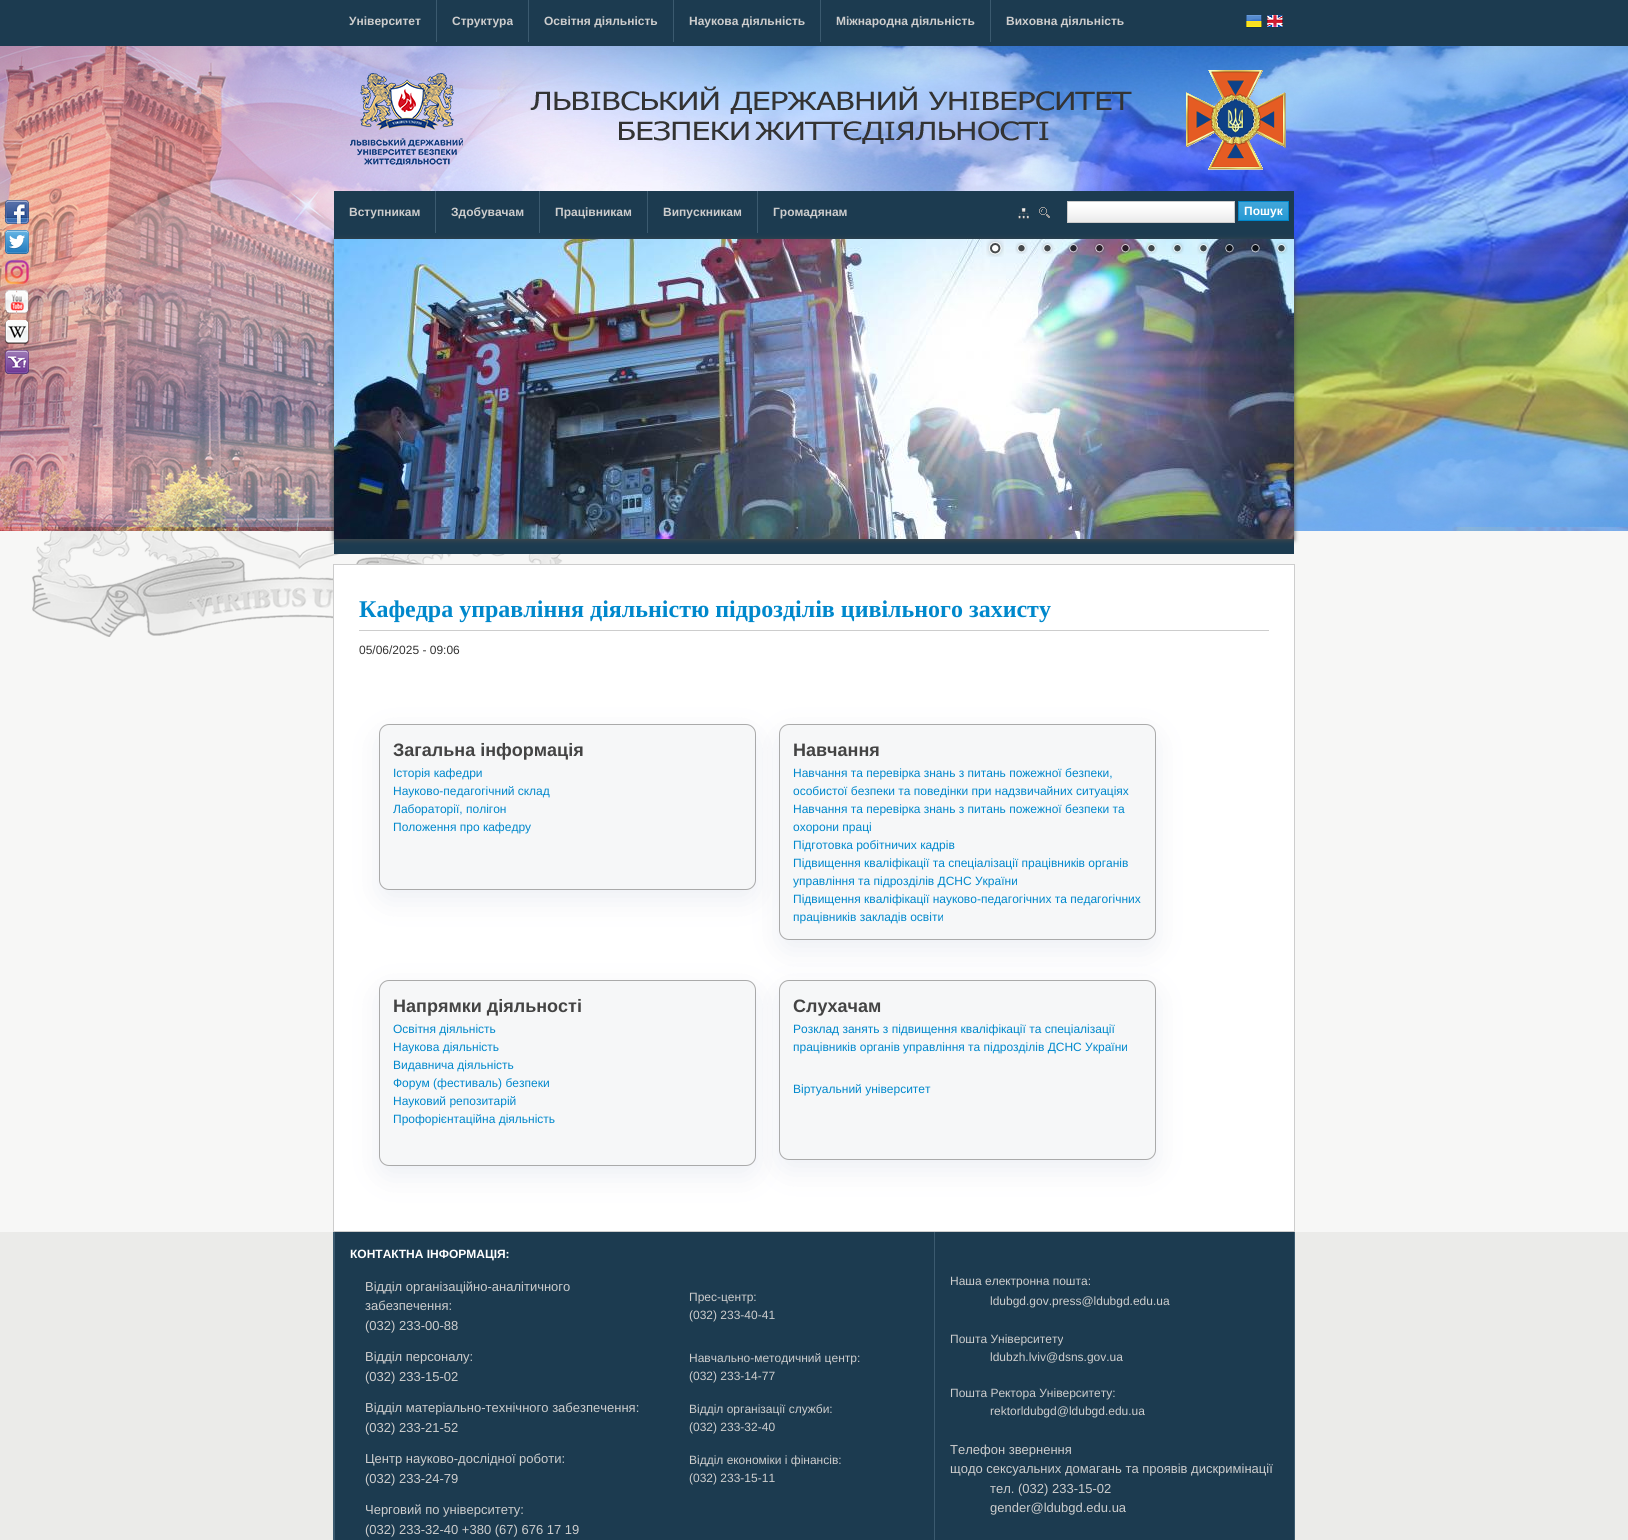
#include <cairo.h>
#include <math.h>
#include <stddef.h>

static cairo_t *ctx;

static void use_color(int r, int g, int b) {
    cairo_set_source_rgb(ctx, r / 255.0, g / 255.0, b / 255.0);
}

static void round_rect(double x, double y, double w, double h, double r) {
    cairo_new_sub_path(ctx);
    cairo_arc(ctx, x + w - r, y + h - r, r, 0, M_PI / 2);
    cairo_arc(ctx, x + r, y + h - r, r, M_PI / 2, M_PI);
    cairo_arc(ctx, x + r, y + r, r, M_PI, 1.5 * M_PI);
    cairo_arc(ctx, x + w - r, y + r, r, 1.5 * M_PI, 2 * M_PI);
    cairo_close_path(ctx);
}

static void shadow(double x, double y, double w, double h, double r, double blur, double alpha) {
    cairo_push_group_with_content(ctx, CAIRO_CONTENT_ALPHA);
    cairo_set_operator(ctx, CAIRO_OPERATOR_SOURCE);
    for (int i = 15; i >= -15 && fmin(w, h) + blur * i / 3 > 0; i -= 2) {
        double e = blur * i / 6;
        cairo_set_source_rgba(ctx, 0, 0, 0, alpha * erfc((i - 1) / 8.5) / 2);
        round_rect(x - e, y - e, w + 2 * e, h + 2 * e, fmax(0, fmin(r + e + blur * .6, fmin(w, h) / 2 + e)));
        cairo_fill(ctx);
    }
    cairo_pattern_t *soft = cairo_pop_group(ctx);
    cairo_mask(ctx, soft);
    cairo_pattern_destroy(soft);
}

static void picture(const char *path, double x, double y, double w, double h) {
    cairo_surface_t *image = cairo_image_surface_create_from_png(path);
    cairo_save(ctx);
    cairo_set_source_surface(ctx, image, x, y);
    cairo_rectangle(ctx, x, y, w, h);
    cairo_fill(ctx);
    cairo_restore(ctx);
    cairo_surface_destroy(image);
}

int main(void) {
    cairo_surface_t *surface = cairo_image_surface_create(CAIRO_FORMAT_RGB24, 1628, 1540);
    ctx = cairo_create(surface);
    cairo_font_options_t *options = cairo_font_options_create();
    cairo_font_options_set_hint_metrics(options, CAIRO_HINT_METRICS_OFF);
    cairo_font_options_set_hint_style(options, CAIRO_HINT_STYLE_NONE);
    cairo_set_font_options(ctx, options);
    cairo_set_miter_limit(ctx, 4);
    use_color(247, 247, 246);
    cairo_paint(ctx);
    picture("img1.png", 32, 531, 531, 106);
    picture("img2.png", 0, 46, 1628, 485);
    use_color(28, 59, 80);
    cairo_rectangle(ctx, 0, 0, 1628, 46);
    cairo_fill(ctx);
    cairo_select_font_face(ctx, "Liberation Sans", CAIRO_FONT_SLANT_NORMAL, CAIRO_FONT_WEIGHT_BOLD);
    cairo_set_font_size(ctx, 12);
    use_color(205, 205, 205);
    cairo_move_to(ctx, 349, 25);
    cairo_show_text(ctx, "Університет");
    use_color(59, 90, 111);
    cairo_rectangle(ctx, 436, 0, 1, 42);
    cairo_fill(ctx);
    use_color(205, 205, 205);
    cairo_move_to(ctx, 452, 25);
    cairo_show_text(ctx, "Структура");
    use_color(59, 90, 111);
    cairo_rectangle(ctx, 528, 0, 1, 42);
    cairo_fill(ctx);
    use_color(205, 205, 205);
    cairo_move_to(ctx, 544, 25);
    cairo_show_text(ctx, "Освітня діяльність");
    use_color(59, 90, 111);
    cairo_rectangle(ctx, 673, 0, 1, 42);
    cairo_fill(ctx);
    use_color(205, 205, 205);
    cairo_move_to(ctx, 689, 25);
    cairo_show_text(ctx, "Наукова діяльність");
    use_color(59, 90, 111);
    cairo_rectangle(ctx, 820, 0, 1, 42);
    cairo_fill(ctx);
    use_color(205, 205, 205);
    cairo_move_to(ctx, 836, 25);
    cairo_show_text(ctx, "Міжнародна діяльність");
    use_color(59, 90, 111);
    cairo_rectangle(ctx, 990, 0, 1, 42);
    cairo_fill(ctx);
    use_color(205, 205, 205);
    cairo_move_to(ctx, 1006, 25);
    cairo_show_text(ctx, "Виховна діяльність");
    picture("img3.png", 1246, 15, 16, 13);
    picture("img4.png", 1267, 15, 16, 13);
    picture("img5.png", 350, 73, 113, 92);
    picture("img6.png", 530, 86, 602, 58);
    picture("img7.png", 1186, 70, 100, 100);
    picture("img8.png", 5, 200, 24, 24);
    picture("img9.png", 5, 230, 24, 24);
    picture("img10.png", 5, 260, 24, 24);
    picture("img11.png", 5, 290, 24, 24);
    picture("img12.png", 5, 320, 24, 24);
    picture("img13.png", 5, 350, 24, 24);
    use_color(28, 59, 80);
    cairo_rectangle(ctx, 334, 191, 960, 363);
    cairo_fill(ctx);
    use_color(205, 205, 205);
    cairo_move_to(ctx, 349, 216);
    cairo_show_text(ctx, "Вступникам");
    use_color(74, 74, 74);
    shadow(334, 240, 960, 300, 0, 2.5, 1);
    use_color(59, 90, 111);
    cairo_rectangle(ctx, 435, 191, 1, 42);
    cairo_fill(ctx);
    use_color(205, 205, 205);
    cairo_move_to(ctx, 451, 216);
    cairo_show_text(ctx, "Здобувачам");
    use_color(59, 90, 111);
    cairo_rectangle(ctx, 539, 191, 1, 42);
    cairo_fill(ctx);
    use_color(205, 205, 205);
    cairo_move_to(ctx, 555, 216);
    cairo_show_text(ctx, "Працівникам");
    use_color(59, 90, 111);
    cairo_rectangle(ctx, 647, 191, 1, 42);
    cairo_fill(ctx);
    use_color(205, 205, 205);
    cairo_move_to(ctx, 663, 216);
    cairo_show_text(ctx, "Випускникам");
    use_color(59, 90, 111);
    cairo_rectangle(ctx, 757, 191, 1, 42);
    cairo_fill(ctx);
    use_color(205, 205, 205);
    cairo_move_to(ctx, 773, 216);
    cairo_show_text(ctx, "Громадянам");
    picture("img14.png", 1018, 208, 11, 11);
    picture("img15.png", 1039, 207, 11, 11);
    picture("img16.png", 1068, 202, 166, 20);
    cairo_rectangle(ctx, 1067.5, 201.5, 167, 21);
    use_color(204, 204, 204);
    cairo_set_line_width(ctx, 1);
    cairo_stroke(ctx);
    picture("img17.png", 1239, 202, 49, 18);
    cairo_rectangle(ctx, 1238.5, 201.5, 50, 19);
    use_color(0, 136, 204);
    cairo_stroke(ctx);
    use_color(255, 255, 255);
    cairo_move_to(ctx, 1244, 215);
    cairo_show_text(ctx, "Пошук");
    picture("img18.png", 334, 239, 960, 300);
    picture("img19.png", 986, 239, 18, 18);
    picture("img20.png", 1015, 242, 13, 12);
    picture("img21.png", 1041, 242, 13, 12);
    picture("img22.png", 1067, 242, 13, 12);
    picture("img23.png", 1094, 242, 11, 12);
    picture("img24.png", 1119, 242, 12, 12);
    picture("img25.png", 1145, 242, 13, 12);
    picture("img26.png", 1171, 242, 13, 12);
    picture("img27.png", 1197, 242, 13, 12);
    picture("img28.png", 1224, 243, 11, 11);
    picture("img29.png", 1250, 243, 11, 11);
    picture("img30.png", 1275, 242, 13, 12);
    cairo_rectangle(ctx, 333.5, 564.5, 961, 667);
    use_color(205, 205, 205);
    cairo_stroke(ctx);
    use_color(255, 255, 255);
    cairo_rectangle(ctx, 334, 565, 960, 666);
    cairo_fill(ctx);
    use_color(205, 205, 205);
    cairo_rectangle(ctx, 359, 630, 910, 1);
    cairo_fill(ctx);
    cairo_select_font_face(ctx, "Liberation Serif", CAIRO_FONT_SLANT_NORMAL, CAIRO_FONT_WEIGHT_BOLD);
    cairo_set_font_size(ctx, 24);
    use_color(0, 136, 204);
    cairo_move_to(ctx, 359, 617);
    cairo_show_text(ctx, "Кафедра управління діяльністю підрозділів цивільного захисту");
    cairo_select_font_face(ctx, "Liberation Sans", CAIRO_FONT_SLANT_NORMAL, CAIRO_FONT_WEIGHT_NORMAL);
    cairo_set_font_size(ctx, 12);
    use_color(51, 51, 51);
    cairo_move_to(ctx, 359, 654);
    cairo_show_text(ctx, "05/06/2025 - 09:06");
    use_color(68, 88, 144);
    shadow(379, 734, 377, 166, 10, 14.5, 0.1);
    use_color(246, 247, 248);
    round_rect(379.5, 724.5, 376, 165, 9.5);
    cairo_fill_preserve(ctx);
    use_color(170, 170, 170);
    cairo_stroke(ctx);
    cairo_select_font_face(ctx, "Liberation Sans", CAIRO_FONT_SLANT_NORMAL, CAIRO_FONT_WEIGHT_BOLD);
    cairo_set_font_size(ctx, 18);
    use_color(68, 68, 68);
    cairo_move_to(ctx, 393, 756);
    cairo_show_text(ctx, "Загальна інформація");
    cairo_select_font_face(ctx, "Liberation Sans", CAIRO_FONT_SLANT_NORMAL, CAIRO_FONT_WEIGHT_NORMAL);
    cairo_set_font_size(ctx, 12);
    use_color(0, 136, 204);
    cairo_move_to(ctx, 393, 777);
    cairo_show_text(ctx, "Історія кафедри");
    cairo_move_to(ctx, 393, 795);
    cairo_show_text(ctx, "Науково-педагогічний склад");
    cairo_move_to(ctx, 393, 813);
    cairo_show_text(ctx, "Лабораторії, полігон");
    cairo_move_to(ctx, 393, 831);
    cairo_show_text(ctx, "Положення про кафедру");
    use_color(68, 88, 144);
    shadow(779, 734, 377, 216, 10, 14.5, 0.1);
    use_color(246, 247, 248);
    round_rect(779.5, 724.5, 376, 215, 9.5);
    cairo_fill_preserve(ctx);
    use_color(170, 170, 170);
    cairo_stroke(ctx);
    cairo_select_font_face(ctx, "Liberation Sans", CAIRO_FONT_SLANT_NORMAL, CAIRO_FONT_WEIGHT_BOLD);
    cairo_set_font_size(ctx, 18);
    use_color(68, 68, 68);
    cairo_move_to(ctx, 793, 756);
    cairo_show_text(ctx, "Навчання");
    cairo_select_font_face(ctx, "Liberation Sans", CAIRO_FONT_SLANT_NORMAL, CAIRO_FONT_WEIGHT_NORMAL);
    cairo_set_font_size(ctx, 12);
    use_color(0, 136, 204);
    cairo_move_to(ctx, 793, 777);
    cairo_show_text(ctx, "Навчання та перевірка знань з питань пожежної безпеки,");
    cairo_move_to(ctx, 793, 795);
    cairo_show_text(ctx, "особистої безпеки та поведінки при надзвичайних ситуаціях");
    cairo_move_to(ctx, 793, 813);
    cairo_show_text(ctx, "Навчання та перевірка знань з питань пожежної безпеки та");
    cairo_move_to(ctx, 793, 831);
    cairo_show_text(ctx, "охорони праці");
    cairo_move_to(ctx, 793, 849);
    cairo_show_text(ctx, "Підготовка робітничих кадрів");
    cairo_move_to(ctx, 793, 867);
    cairo_show_text(ctx, "Підвищення кваліфікації та спеціалізації працівників органів");
    cairo_move_to(ctx, 793, 885);
    cairo_show_text(ctx, "управління та підрозділів ДСНС України");
    cairo_move_to(ctx, 793, 903);
    cairo_show_text(ctx, "Підвищення кваліфікації науково-педагогічних та педагогічних");
    cairo_move_to(ctx, 793, 921);
    cairo_show_text(ctx, "працівників закладів освіти");
    use_color(68, 88, 144);
    shadow(379, 990, 377, 186, 10, 14.5, 0.1);
    use_color(246, 247, 248);
    round_rect(379.5, 980.5, 376, 185, 9.5);
    cairo_fill_preserve(ctx);
    use_color(170, 170, 170);
    cairo_stroke(ctx);
    cairo_select_font_face(ctx, "Liberation Sans", CAIRO_FONT_SLANT_NORMAL, CAIRO_FONT_WEIGHT_BOLD);
    cairo_set_font_size(ctx, 18);
    use_color(68, 68, 68);
    cairo_move_to(ctx, 393, 1012);
    cairo_show_text(ctx, "Напрямки діяльності");
    cairo_select_font_face(ctx, "Liberation Sans", CAIRO_FONT_SLANT_NORMAL, CAIRO_FONT_WEIGHT_NORMAL);
    cairo_set_font_size(ctx, 12);
    use_color(0, 136, 204);
    cairo_move_to(ctx, 393, 1033);
    cairo_show_text(ctx, "Освітня діяльність");
    cairo_move_to(ctx, 393, 1051);
    cairo_show_text(ctx, "Наукова діяльність");
    cairo_move_to(ctx, 393, 1069);
    cairo_show_text(ctx, "Видавнича діяльність");
    cairo_move_to(ctx, 393, 1087);
    cairo_show_text(ctx, "Форум (фестиваль) безпеки");
    cairo_move_to(ctx, 393, 1105);
    cairo_show_text(ctx, "Науковий репозитарій");
    cairo_move_to(ctx, 393, 1123);
    cairo_show_text(ctx, "Профорієнтаційна діяльність");
    use_color(68, 88, 144);
    shadow(779, 990, 377, 180, 10, 14.5, 0.1);
    use_color(246, 247, 248);
    round_rect(779.5, 980.5, 376, 179, 9.5);
    cairo_fill_preserve(ctx);
    use_color(170, 170, 170);
    cairo_stroke(ctx);
    cairo_select_font_face(ctx, "Liberation Sans", CAIRO_FONT_SLANT_NORMAL, CAIRO_FONT_WEIGHT_BOLD);
    cairo_set_font_size(ctx, 18);
    use_color(68, 68, 68);
    cairo_move_to(ctx, 793, 1012);
    cairo_show_text(ctx, "Слухачам");
    cairo_select_font_face(ctx, "Liberation Sans", CAIRO_FONT_SLANT_NORMAL, CAIRO_FONT_WEIGHT_NORMAL);
    cairo_set_font_size(ctx, 12);
    use_color(0, 136, 204);
    cairo_move_to(ctx, 793, 1033);
    cairo_show_text(ctx, "Розклад занять з підвищення кваліфікації та спеціалізації");
    cairo_move_to(ctx, 793, 1051);
    cairo_show_text(ctx, "працівників органів управління та підрозділів ДСНС України");
    cairo_move_to(ctx, 793, 1093);
    cairo_show_text(ctx, "Віртуальний університет");
    use_color(235, 235, 233);
    cairo_rectangle(ctx, 0, 1232, 1628, 308);
    cairo_fill(ctx);
    use_color(28, 59, 80);
    cairo_rectangle(ctx, 335, 1232, 959, 308);
    cairo_fill(ctx);
    use_color(59, 90, 111);
    cairo_rectangle(ctx, 1294, 1232, 1, 308);
    cairo_fill(ctx);
    cairo_rectangle(ctx, 333, 1232, 2, 308);
    cairo_fill(ctx);
    cairo_select_font_face(ctx, "Liberation Sans", CAIRO_FONT_SLANT_NORMAL, CAIRO_FONT_WEIGHT_BOLD);
    use_color(255, 255, 255);
    cairo_move_to(ctx, 350, 1258);
    cairo_show_text(ctx, "КОНТАКТНА ІНФОРМАЦІЯ:");
    cairo_select_font_face(ctx, "Liberation Sans", CAIRO_FONT_SLANT_NORMAL, CAIRO_FONT_WEIGHT_NORMAL);
    cairo_set_font_size(ctx, 13);
    use_color(205, 205, 205);
    cairo_move_to(ctx, 365, 1291);
    cairo_show_text(ctx, "Відділ організаційно-аналітичного");
    cairo_move_to(ctx, 365, 1310);
    cairo_show_text(ctx, "забезпечення:");
    cairo_move_to(ctx, 365, 1330);
    cairo_show_text(ctx, "(032) 233-00-88");
    cairo_set_font_size(ctx, 12);
    cairo_move_to(ctx, 689, 1301);
    cairo_show_text(ctx, "Прес-центр:");
    cairo_move_to(ctx, 689, 1319);
    cairo_show_text(ctx, "(032) 233-40-41");
    cairo_set_font_size(ctx, 13);
    cairo_move_to(ctx, 365, 1361);
    cairo_show_text(ctx, "Відділ персоналу:");
    cairo_move_to(ctx, 365, 1381);
    cairo_show_text(ctx, "(032) 233-15-02");
    cairo_set_font_size(ctx, 12);
    cairo_move_to(ctx, 689, 1362);
    cairo_show_text(ctx, "Навчально-методичний центр:");
    cairo_move_to(ctx, 689, 1380);
    cairo_show_text(ctx, "(032) 233-14-77");
    cairo_set_font_size(ctx, 13);
    cairo_move_to(ctx, 365, 1412);
    cairo_show_text(ctx, "Відділ матеріально-технічного забезпечення:");
    cairo_move_to(ctx, 365, 1432);
    cairo_show_text(ctx, "(032) 233-21-52");
    cairo_set_font_size(ctx, 12);
    cairo_move_to(ctx, 689, 1413);
    cairo_show_text(ctx, "Відділ організації служби:");
    cairo_move_to(ctx, 689, 1431);
    cairo_show_text(ctx, "(032) 233-32-40");
    cairo_set_font_size(ctx, 13);
    cairo_move_to(ctx, 365, 1463);
    cairo_show_text(ctx, "Центр науково-дослідної роботи:");
    cairo_move_to(ctx, 365, 1483);
    cairo_show_text(ctx, "(032) 233-24-79");
    cairo_set_font_size(ctx, 12);
    cairo_move_to(ctx, 689, 1464);
    cairo_show_text(ctx, "Відділ економіки і фінансів:");
    cairo_move_to(ctx, 689, 1482);
    cairo_show_text(ctx, "(032) 233-15-11");
    cairo_set_font_size(ctx, 13);
    cairo_move_to(ctx, 365, 1514);
    cairo_show_text(ctx, "Черговий по університету:");
    cairo_move_to(ctx, 365, 1534);
    cairo_show_text(ctx, "(032) 233-32-40 +380 (67) 676 17 19");
    use_color(59, 90, 111);
    cairo_rectangle(ctx, 934, 1232, 1, 308);
    cairo_fill(ctx);
    cairo_set_font_size(ctx, 12);
    use_color(205, 205, 205);
    cairo_move_to(ctx, 950, 1285);
    cairo_show_text(ctx, "Наша електронна пошта:");
    cairo_move_to(ctx, 990, 1305);
    cairo_show_text(ctx, "ldubgd.gov.press@ldubgd.edu.ua");
    cairo_move_to(ctx, 950, 1343);
    cairo_show_text(ctx, "Пошта Університету");
    cairo_move_to(ctx, 990, 1361);
    cairo_show_text(ctx, "ldubzh.lviv@dsns.gov.ua");
    cairo_move_to(ctx, 950, 1397);
    cairo_show_text(ctx, "Пошта Ректора Університету:");
    cairo_move_to(ctx, 990, 1415);
    cairo_show_text(ctx, "rektorldubgd@ldubgd.edu.ua");
    cairo_set_font_size(ctx, 13);
    cairo_move_to(ctx, 950, 1454);
    cairo_show_text(ctx, "Телефон звернення");
    cairo_move_to(ctx, 950, 1473);
    cairo_show_text(ctx, "щодо сексуальних домагань та проявів дискримінації");
    cairo_move_to(ctx, 990, 1493);
    cairo_show_text(ctx, "тел. (032) 233-15-02");
    cairo_move_to(ctx, 990, 1512);
    cairo_show_text(ctx, "gender@ldubgd.edu.ua");
    cairo_surface_write_to_png(surface, "result.png");
    cairo_font_options_destroy(options);
    cairo_destroy(ctx);
    cairo_surface_destroy(surface);
    return 0;
}
